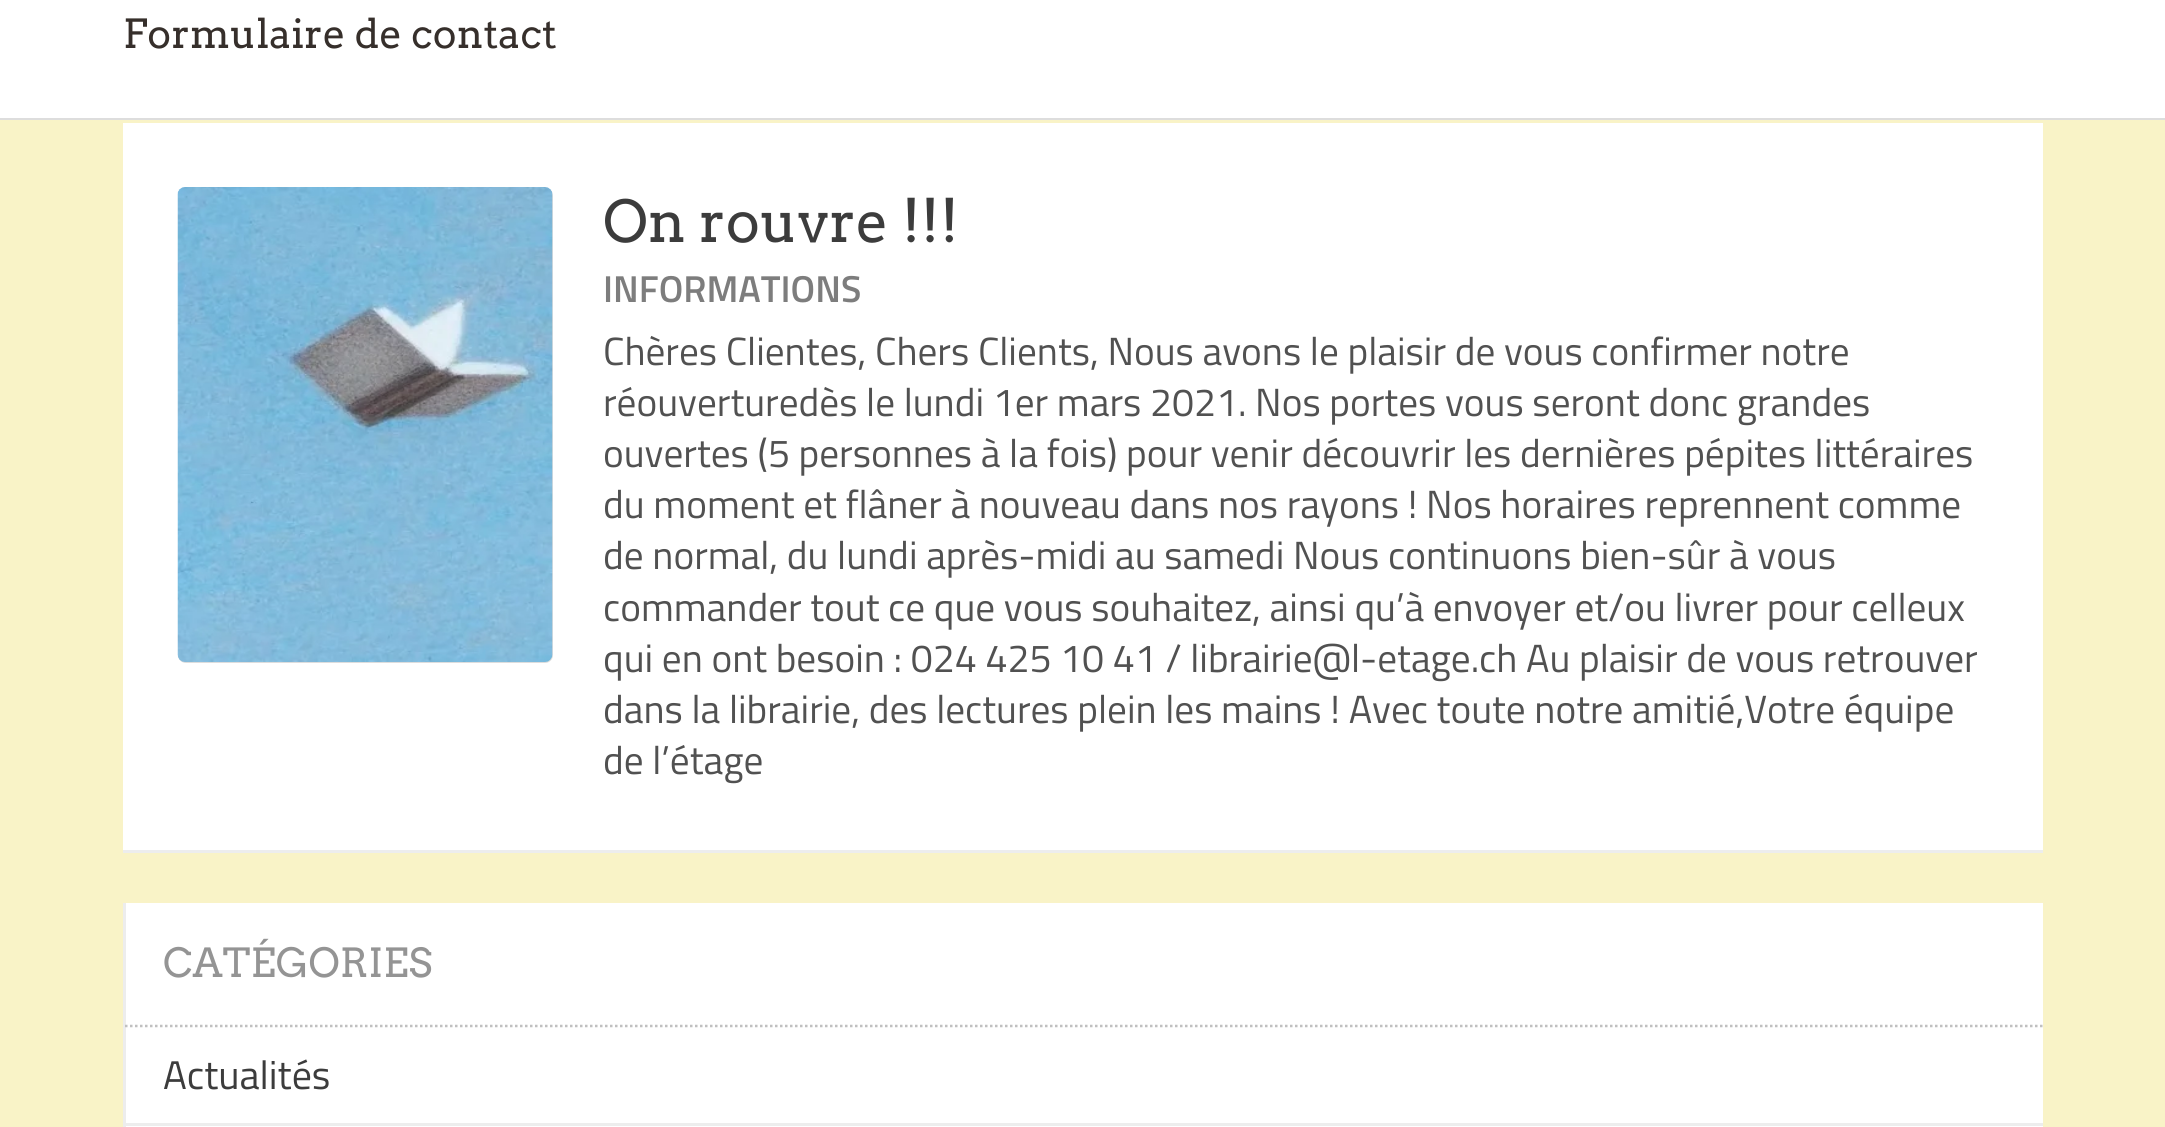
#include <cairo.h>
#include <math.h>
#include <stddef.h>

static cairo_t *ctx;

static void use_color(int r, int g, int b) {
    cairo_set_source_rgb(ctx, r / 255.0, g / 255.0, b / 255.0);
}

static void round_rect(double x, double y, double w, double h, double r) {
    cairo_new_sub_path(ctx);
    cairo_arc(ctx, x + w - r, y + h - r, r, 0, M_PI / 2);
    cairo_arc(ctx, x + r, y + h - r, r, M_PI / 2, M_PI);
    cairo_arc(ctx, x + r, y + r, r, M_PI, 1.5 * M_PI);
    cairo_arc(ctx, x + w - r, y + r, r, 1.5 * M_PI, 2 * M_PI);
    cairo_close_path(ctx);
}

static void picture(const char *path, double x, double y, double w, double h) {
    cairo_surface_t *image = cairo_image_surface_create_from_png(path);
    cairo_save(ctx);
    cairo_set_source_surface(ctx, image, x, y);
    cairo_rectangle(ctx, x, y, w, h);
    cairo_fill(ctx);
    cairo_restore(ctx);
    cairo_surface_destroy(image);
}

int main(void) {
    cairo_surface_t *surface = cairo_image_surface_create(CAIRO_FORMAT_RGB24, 2165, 1127);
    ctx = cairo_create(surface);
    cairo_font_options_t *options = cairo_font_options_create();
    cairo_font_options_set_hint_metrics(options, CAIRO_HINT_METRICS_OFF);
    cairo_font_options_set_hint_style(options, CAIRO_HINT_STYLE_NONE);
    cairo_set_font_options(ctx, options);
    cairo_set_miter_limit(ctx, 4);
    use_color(255, 255, 255);
    cairo_paint(ctx);
    use_color(221, 221, 221);
    cairo_rectangle(ctx, 0, 118, 2165, 2);
    cairo_fill(ctx);
    cairo_select_font_face(ctx, "Arvo", CAIRO_FONT_SLANT_NORMAL, CAIRO_FONT_WEIGHT_NORMAL);
    cairo_set_font_size(ctx, 40);
    use_color(54, 47, 43);
    cairo_move_to(ctx, 123, 48);
    cairo_show_text(ctx, "Formulaire de contact");
    use_color(249, 243, 199);
    cairo_rectangle(ctx, 0, 120, 2165, 1007);
    cairo_fill(ctx);
    use_color(255, 255, 255);
    cairo_rectangle(ctx, 123, 123, 1920, 727);
    cairo_fill(ctx);
    use_color(237, 237, 237);
    cairo_rectangle(ctx, 123, 850, 1920, 3);
    cairo_fill(ctx);
    use_color(221, 221, 221);
    round_rect(178, 188, 375, 475, 8);
    cairo_fill(ctx);
    picture("img1.png", 177, 187, 376, 475);
    cairo_set_font_size(ctx, 57.5);
    use_color(60, 60, 60);
    cairo_move_to(ctx, 603, 242);
    cairo_show_text(ctx, "On rouvre !!!");
    cairo_select_font_face(ctx, "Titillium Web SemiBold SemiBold", CAIRO_FONT_SLANT_NORMAL, CAIRO_FONT_WEIGHT_NORMAL);
    cairo_set_font_size(ctx, 37.5);
    use_color(125, 125, 125);
    cairo_move_to(ctx, 603, 302);
    cairo_show_text(ctx, "INFORMATIONS");
    cairo_select_font_face(ctx, "Titillium Web", CAIRO_FONT_SLANT_NORMAL, CAIRO_FONT_WEIGHT_NORMAL);
    cairo_set_font_size(ctx, 39.3);
    use_color(81, 81, 81);
    cairo_move_to(ctx, 603, 365);
    cairo_show_text(ctx, "Chères Clientes, Chers Clients, Nous avons le plaisir de vous confirmer notre");
    cairo_move_to(ctx, 603, 416);
    cairo_show_text(ctx, "réouverturedès le lundi 1er mars 2021. Nos portes vous seront donc grandes");
    cairo_move_to(ctx, 603, 467);
    cairo_show_text(ctx, "ouvertes (5 personnes à la fois) pour venir découvrir les dernières pépites littéraires");
    cairo_move_to(ctx, 603, 518);
    cairo_show_text(ctx, "du moment et flâner à nouveau dans nos rayons ! Nos horaires reprennent comme");
    cairo_move_to(ctx, 603, 569);
    cairo_show_text(ctx, "de normal, du lundi après-midi au samedi Nous continuons bien-sûr à vous");
    cairo_move_to(ctx, 603, 621);
    cairo_show_text(ctx, "commander tout ce que vous souhaitez, ainsi qu’à envoyer et/ou livrer pour celleux");
    cairo_move_to(ctx, 603, 672);
    cairo_show_text(ctx, "qui en ont besoin : 024 425 10 41 / librairie@l-etage.ch Au plaisir de vous retrouver");
    cairo_move_to(ctx, 603, 723);
    cairo_show_text(ctx, "dans la librairie, des lectures plein les mains ! Avec toute notre amitié,Votre équipe");
    cairo_move_to(ctx, 603, 774);
    cairo_show_text(ctx, "de l’étage");
    use_color(255, 255, 255);
    cairo_rectangle(ctx, 126, 903, 1917, 224);
    cairo_fill(ctx);
    use_color(237, 237, 237);
    cairo_rectangle(ctx, 123, 903, 3, 224);
    cairo_fill(ctx);
    cairo_new_path(ctx);
    cairo_move_to(ctx, 125, 1026);
    cairo_line_to(ctx, 2042.5, 1026);
    use_color(192, 192, 192);
    cairo_set_line_width(ctx, 2.5);
    cairo_set_dash(ctx, (double[]){2.5, 2.5}, 2, 0);
    cairo_stroke(ctx);
    cairo_select_font_face(ctx, "Arvo", CAIRO_FONT_SLANT_NORMAL, CAIRO_FONT_WEIGHT_NORMAL);
    cairo_set_font_size(ctx, 40);
    use_color(148, 148, 148);
    cairo_move_to(ctx, 163, 977);
    cairo_show_text(ctx, "CATÉGORIES");
    use_color(237, 237, 237);
    cairo_rectangle(ctx, 125, 1123, 1918, 3);
    cairo_fill(ctx);
    cairo_select_font_face(ctx, "Titillium Web", CAIRO_FONT_SLANT_NORMAL, CAIRO_FONT_WEIGHT_NORMAL);
    use_color(60, 60, 60);
    cairo_move_to(ctx, 163, 1089);
    cairo_show_text(ctx, "Actualités");
    cairo_surface_write_to_png(surface, "result.png");
    cairo_font_options_destroy(options);
    cairo_destroy(ctx);
    cairo_surface_destroy(surface);
    return 0;
}
